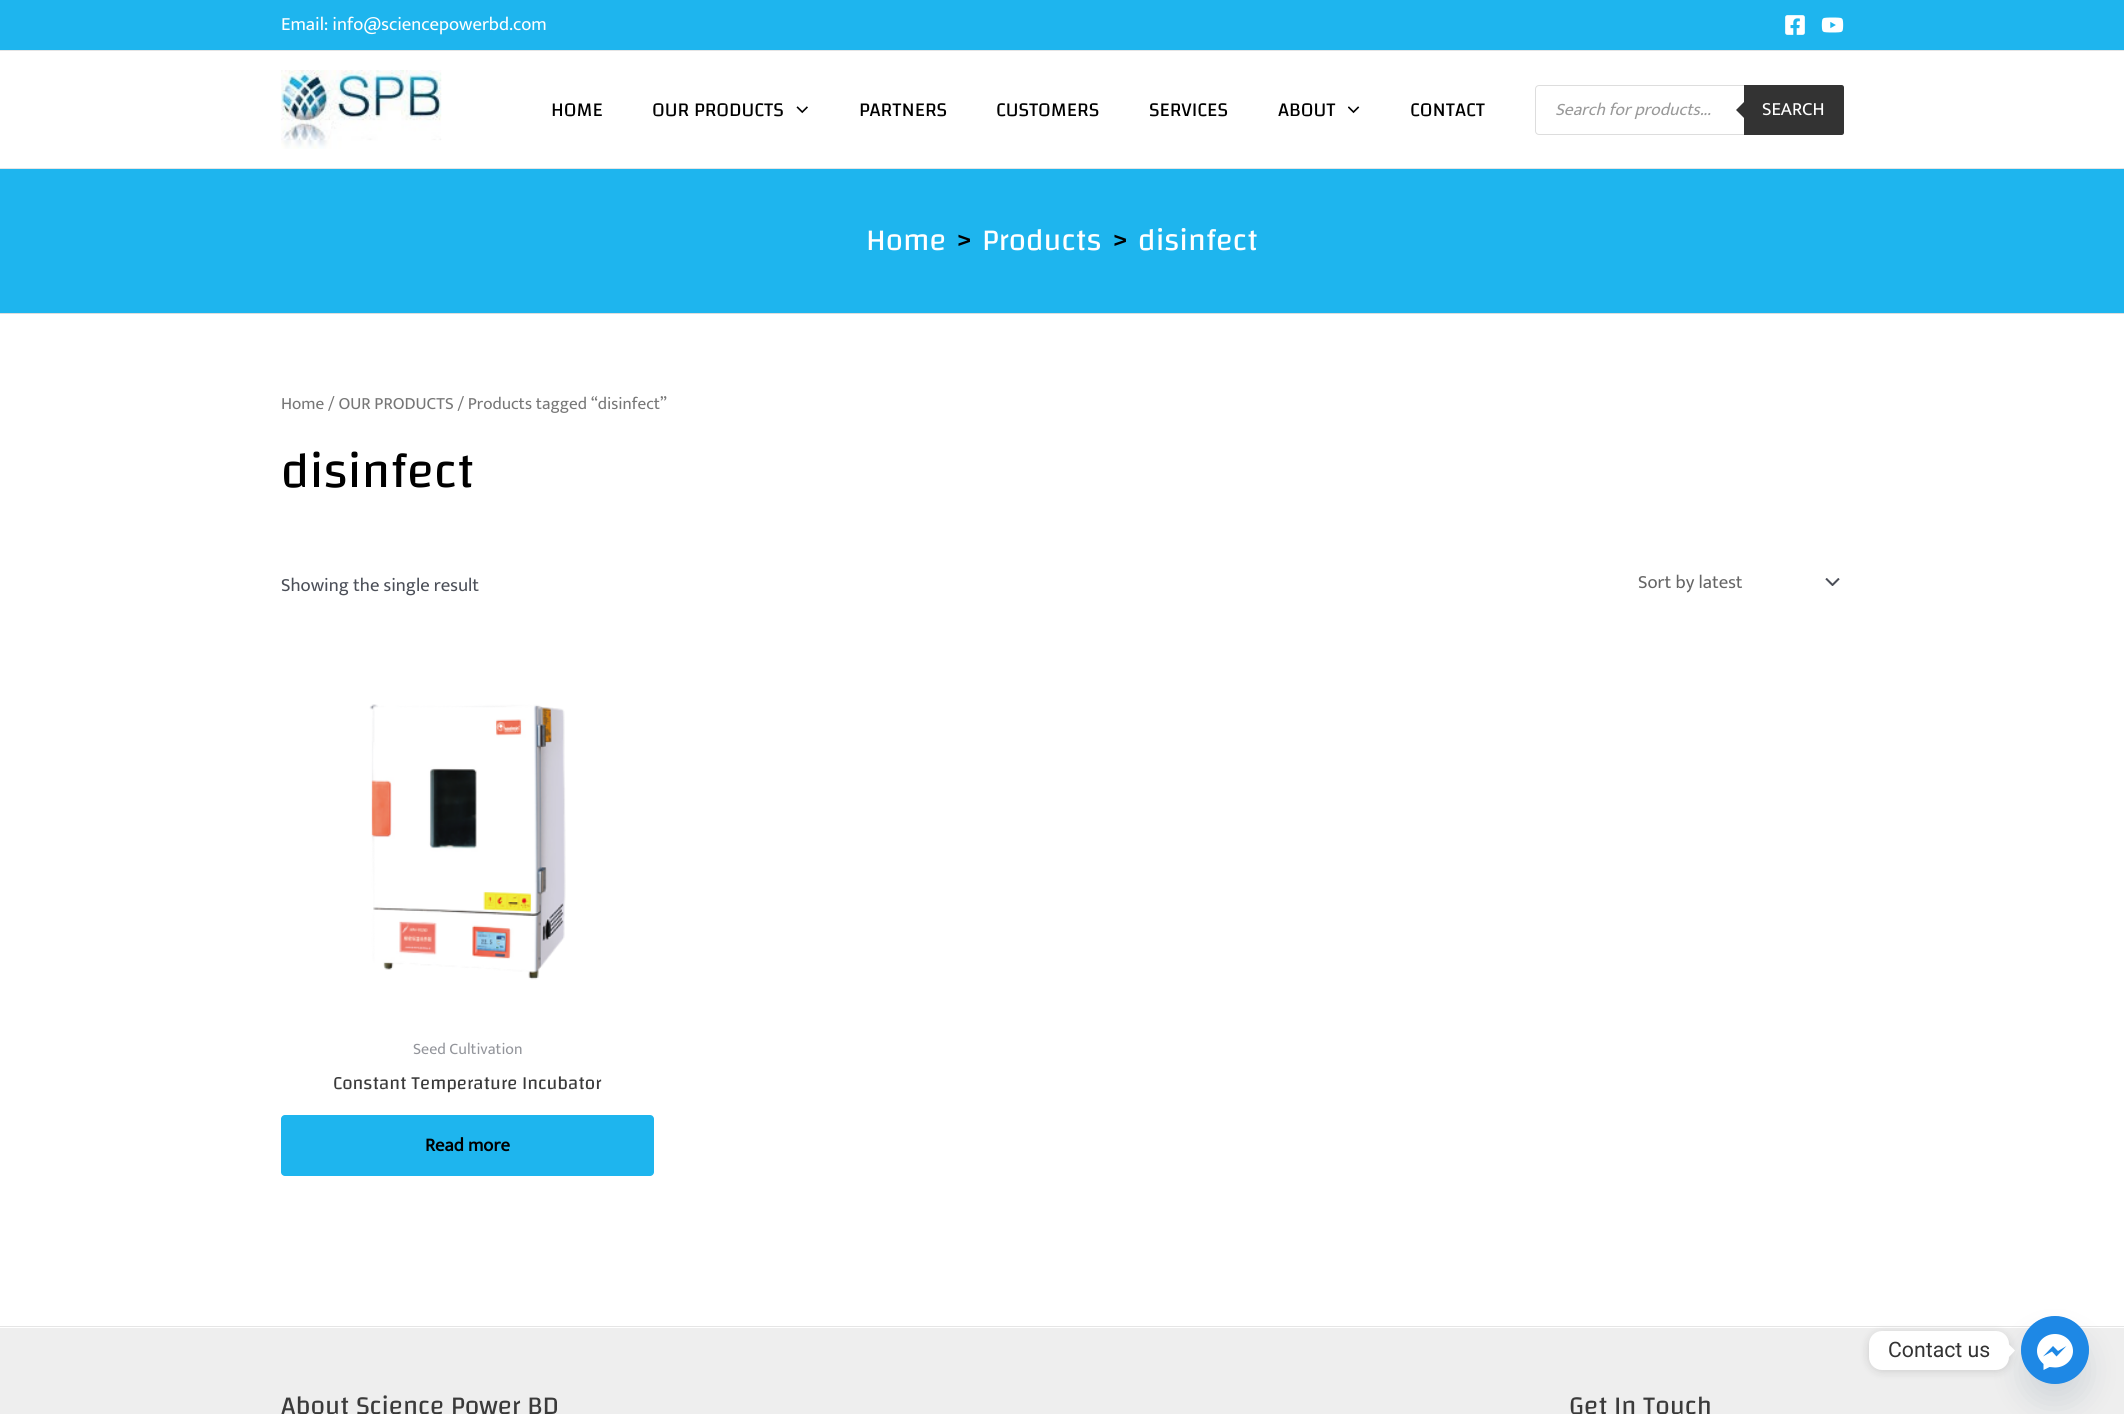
#include <cairo.h>
#include <math.h>
#include <stddef.h>

static cairo_t *ctx;

static void use_color(int r, int g, int b) {
    cairo_set_source_rgb(ctx, r / 255.0, g / 255.0, b / 255.0);
}

static void round_rect(double x, double y, double w, double h, double r) {
    cairo_new_sub_path(ctx);
    cairo_arc(ctx, x + w - r, y + h - r, r, 0, M_PI / 2);
    cairo_arc(ctx, x + r, y + h - r, r, M_PI / 2, M_PI);
    cairo_arc(ctx, x + r, y + r, r, M_PI, 1.5 * M_PI);
    cairo_arc(ctx, x + w - r, y + r, r, 1.5 * M_PI, 2 * M_PI);
    cairo_close_path(ctx);
}

static void shadow(double x, double y, double w, double h, double r, double blur, double alpha) {
    cairo_push_group_with_content(ctx, CAIRO_CONTENT_ALPHA);
    cairo_set_operator(ctx, CAIRO_OPERATOR_SOURCE);
    for (int i = 15; i >= -15 && fmin(w, h) + blur * i / 3 > 0; i -= 2) {
        double e = blur * i / 6;
        cairo_set_source_rgba(ctx, 0, 0, 0, alpha * erfc((i - 1) / 8.5) / 2);
        round_rect(x - e, y - e, w + 2 * e, h + 2 * e, fmax(0, fmin(r + e + blur * .6, fmin(w, h) / 2 + e)));
        cairo_fill(ctx);
    }
    cairo_pattern_t *soft = cairo_pop_group(ctx);
    cairo_mask(ctx, soft);
    cairo_pattern_destroy(soft);
}

static void picture(const char *path, double x, double y, double w, double h) {
    cairo_surface_t *image = cairo_image_surface_create_from_png(path);
    cairo_save(ctx);
    cairo_set_source_surface(ctx, image, x, y);
    cairo_rectangle(ctx, x, y, w, h);
    cairo_fill(ctx);
    cairo_restore(ctx);
    cairo_surface_destroy(image);
}

int main(void) {
    cairo_surface_t *surface = cairo_image_surface_create(CAIRO_FORMAT_RGB24, 2124, 1414);
    ctx = cairo_create(surface);
    cairo_font_options_t *options = cairo_font_options_create();
    cairo_font_options_set_hint_metrics(options, CAIRO_HINT_METRICS_OFF);
    cairo_font_options_set_hint_style(options, CAIRO_HINT_STYLE_NONE);
    cairo_set_font_options(ctx, options);
    cairo_set_miter_limit(ctx, 4);
    use_color(255, 255, 255);
    cairo_paint(ctx);
    use_color(30, 181, 238);
    cairo_rectangle(ctx, 0, 0, 2124, 50);
    cairo_fill(ctx);
    use_color(229, 229, 229);
    cairo_rectangle(ctx, 0, 50, 2124, 1);
    cairo_fill(ctx);
    cairo_select_font_face(ctx, "Mukta", CAIRO_FONT_SLANT_NORMAL, CAIRO_FONT_WEIGHT_NORMAL);
    cairo_set_font_size(ctx, 18.75);
    use_color(255, 255, 255);
    cairo_move_to(ctx, 281, 30);
    cairo_show_text(ctx, "Email: info@sciencepowerbd.com");
    picture("img1.png", 1785, 15, 20, 20);
    picture("img2.png", 1821, 17, 23, 16);
    use_color(229, 229, 229);
    cairo_rectangle(ctx, 0, 168, 2124, 1);
    cairo_fill(ctx);
    picture("img3.png", 281, 70, 161, 79);
    cairo_select_font_face(ctx, "Changa", CAIRO_FONT_SLANT_NORMAL, CAIRO_FONT_WEIGHT_NORMAL);
    cairo_set_font_size(ctx, 20);
    use_color(0, 0, 0);
    cairo_move_to(ctx, 551, 116);
    cairo_show_text(ctx, "HOME");
    cairo_move_to(ctx, 652, 116);
    cairo_show_text(ctx, "OUR PRODUCTS");
    picture("img4.png", 796, 106, 12, 8);
    cairo_move_to(ctx, 859, 116);
    cairo_show_text(ctx, "PARTNERS");
    cairo_move_to(ctx, 996, 116);
    cairo_show_text(ctx, "CUSTOMERS");
    cairo_move_to(ctx, 1149, 116);
    cairo_show_text(ctx, "SERVICES");
    cairo_move_to(ctx, 1278, 116);
    cairo_show_text(ctx, "ABOUT");
    picture("img5.png", 1348, 106, 12, 8);
    cairo_move_to(ctx, 1410, 116);
    cairo_show_text(ctx, "CONTACT");
    round_rect(1535.5, 85.5, 308, 49, 3.5);
    use_color(221, 221, 221);
    cairo_set_line_width(ctx, 1);
    cairo_stroke(ctx);
    cairo_select_font_face(ctx, "Mukta", CAIRO_FONT_SLANT_ITALIC, CAIRO_FONT_WEIGHT_NORMAL);
    cairo_set_font_size(ctx, 17.5);
    use_color(153, 153, 153);
    cairo_move_to(ctx, 1555, 115);
    cairo_show_text(ctx, "Search for products...");
    use_color(51, 51, 51);
    cairo_new_path(ctx);
    cairo_move_to(ctx, 1744, 85);
    cairo_line_to(ctx, 1841.5, 85);
    cairo_curve_to(ctx, 1843, 85, 1844, 86, 1844, 87.5);
    cairo_line_to(ctx, 1844, 132.5);
    cairo_curve_to(ctx, 1844, 134, 1843, 135, 1841.5, 135);
    cairo_line_to(ctx, 1744, 135);
    cairo_close_path(ctx);
    cairo_fill(ctx);
    cairo_new_path(ctx);
    cairo_move_to(ctx, 1746, 100);
    cairo_line_to(ctx, 1746, 120);
    cairo_line_to(ctx, 1736, 110);
    cairo_close_path(ctx);
    cairo_fill(ctx);
    cairo_select_font_face(ctx, "Mukta", CAIRO_FONT_SLANT_NORMAL, CAIRO_FONT_WEIGHT_NORMAL);
    cairo_set_font_size(ctx, 18.75);
    use_color(255, 255, 255);
    cairo_move_to(ctx, 1762, 115);
    cairo_show_text(ctx, "SEARCH");
    use_color(30, 181, 238);
    cairo_rectangle(ctx, 0, 169, 2124, 144);
    cairo_fill(ctx);
    use_color(221, 221, 221);
    cairo_rectangle(ctx, 0, 313, 2124, 1);
    cairo_fill(ctx);
    cairo_select_font_face(ctx, "Changa", CAIRO_FONT_SLANT_NORMAL, CAIRO_FONT_WEIGHT_NORMAL);
    cairo_set_font_size(ctx, 31);
    use_color(255, 255, 255);
    cairo_move_to(ctx, 866, 250);
    cairo_show_text(ctx, "Home");
    use_color(0, 0, 0);
    cairo_move_to(ctx, 956, 250);
    cairo_show_text(ctx, ">");
    use_color(255, 255, 255);
    cairo_move_to(ctx, 982, 250);
    cairo_show_text(ctx, "Products");
    use_color(0, 0, 0);
    cairo_move_to(ctx, 1112, 250);
    cairo_show_text(ctx, ">");
    use_color(255, 255, 255);
    cairo_move_to(ctx, 1138, 250);
    cairo_show_text(ctx, "disinfect");
    cairo_select_font_face(ctx, "Mukta", CAIRO_FONT_SLANT_NORMAL, CAIRO_FONT_WEIGHT_NORMAL);
    cairo_set_font_size(ctx, 17.25);
    use_color(119, 119, 119);
    cairo_move_to(ctx, 281, 409);
    cairo_show_text(ctx, "Home / OUR PRODUCTS / Products tagged “disinfect”");
    cairo_select_font_face(ctx, "Changa", CAIRO_FONT_SLANT_NORMAL, CAIRO_FONT_WEIGHT_NORMAL);
    cairo_set_font_size(ctx, 50);
    use_color(0, 0, 0);
    cairo_move_to(ctx, 281, 487);
    cairo_show_text(ctx, "disinfect");
    cairo_select_font_face(ctx, "Mukta", CAIRO_FONT_SLANT_NORMAL, CAIRO_FONT_WEIGHT_NORMAL);
    cairo_set_font_size(ctx, 18.75);
    use_color(75, 79, 88);
    cairo_move_to(ctx, 281, 591);
    cairo_show_text(ctx, "Showing the single result");
    picture("img6.png", 1825, 578, 15, 8);
    use_color(102, 102, 102);
    cairo_move_to(ctx, 1638, 588);
    cairo_show_text(ctx, "Sort by latest");
    picture("img7.png", 369, 704, 197, 276);
    cairo_set_font_size(ctx, 16);
    use_color(147, 149, 155);
    cairo_move_to(ctx, 413, 1054);
    cairo_show_text(ctx, "Seed Cultivation");
    cairo_select_font_face(ctx, "Changa", CAIRO_FONT_SLANT_NORMAL, CAIRO_FONT_WEIGHT_NORMAL);
    cairo_set_font_size(ctx, 18.75);
    use_color(58, 58, 58);
    cairo_move_to(ctx, 333, 1089);
    cairo_show_text(ctx, "Constant Temperature Incubator");
    use_color(30, 181, 238);
    round_rect(281, 1115, 373, 61, 4);
    cairo_fill(ctx);
    cairo_select_font_face(ctx, "Mukta", CAIRO_FONT_SLANT_NORMAL, CAIRO_FONT_WEIGHT_BOLD);
    use_color(0, 0, 0);
    cairo_move_to(ctx, 425, 1151);
    cairo_show_text(ctx, "Read more");
    use_color(238, 238, 238);
    cairo_rectangle(ctx, 0, 1328, 2124, 86);
    cairo_fill(ctx);
    use_color(229, 229, 229);
    cairo_rectangle(ctx, 0, 1326, 2124, 1);
    cairo_fill(ctx);
    cairo_select_font_face(ctx, "Changa", CAIRO_FONT_SLANT_NORMAL, CAIRO_FONT_WEIGHT_NORMAL);
    cairo_set_font_size(ctx, 26.25);
    use_color(58, 58, 58);
    cairo_move_to(ctx, 281, 1414);
    cairo_show_text(ctx, "About Science Power BD");
    cairo_move_to(ctx, 1569, 1414);
    cairo_show_text(ctx, "Get In Touch");
    use_color(73, 104, 126);
    shadow(2021, 1336, 68, 68, 34, 15, 0.16);
    use_color(30, 136, 229);
    cairo_arc(ctx, 2055, 1350, 34, 0, 2 * M_PI);
    cairo_fill(ctx);
    cairo_arc(ctx, 2055, 1350, 33.5, 0, 2 * M_PI);
    cairo_fill(ctx);
    use_color(0, 0, 0);
    shadow(1869, 1333, 140, 38, 13, 5, 0.15);
    use_color(255, 255, 255);
    round_rect(1869, 1331, 140, 39, 13);
    cairo_fill(ctx);
    cairo_select_font_face(ctx, "Roboto", CAIRO_FONT_SLANT_NORMAL, CAIRO_FONT_WEIGHT_NORMAL);
    cairo_set_font_size(ctx, 21.25);
    use_color(51, 51, 51);
    cairo_move_to(ctx, 1888, 1357);
    cairo_show_text(ctx, "Contact us");
    use_color(255, 255, 255);
    cairo_new_path(ctx);
    cairo_move_to(ctx, 2009, 1357);
    cairo_line_to(ctx, 2009, 1344.5);
    cairo_line_to(ctx, 2015, 1350.5);
    cairo_close_path(ctx);
    cairo_fill(ctx);
    cairo_set_fill_rule(ctx, CAIRO_FILL_RULE_EVEN_ODD);
    cairo_new_path(ctx);
    cairo_move_to(ctx, 2037, 1351);
    cairo_curve_to(ctx, 2037, 1341.5, 2045, 1334, 2055, 1334);
    cairo_curve_to(ctx, 2065, 1334, 2073, 1341.5, 2073, 1351);
    cairo_curve_to(ctx, 2073, 1360, 2065, 1367.5, 2055, 1367.5);
    cairo_curve_to(ctx, 2053, 1367.5, 2051.5, 1367, 2049.5, 1367);
    cairo_line_to(ctx, 2043.5, 1370);
    cairo_line_to(ctx, 2043.5, 1364);
    cairo_curve_to(ctx, 2039.5, 1360.5, 2037, 1356, 2037, 1351);
    cairo_close_path(ctx);
    cairo_move_to(ctx, 2052, 1351.5);
    cairo_line_to(ctx, 2056.5, 1356.5);
    cairo_line_to(ctx, 2066.5, 1346);
    cairo_line_to(ctx, 2058, 1351);
    cairo_line_to(ctx, 2053, 1346);
    cairo_line_to(ctx, 2043, 1356.5);
    cairo_close_path(ctx);
    cairo_fill(ctx);
    cairo_surface_write_to_png(surface, "result.png");
    cairo_font_options_destroy(options);
    cairo_destroy(ctx);
    cairo_surface_destroy(surface);
    return 0;
}
